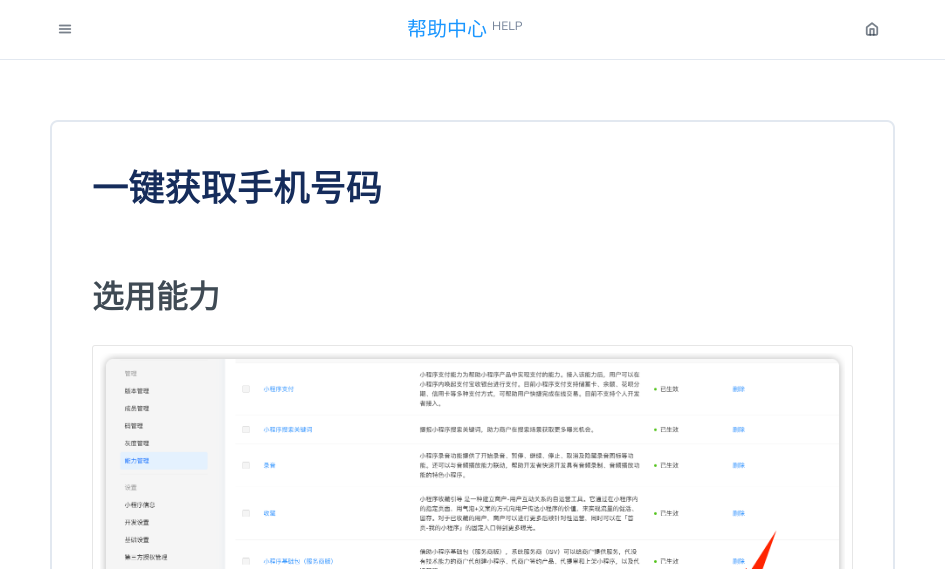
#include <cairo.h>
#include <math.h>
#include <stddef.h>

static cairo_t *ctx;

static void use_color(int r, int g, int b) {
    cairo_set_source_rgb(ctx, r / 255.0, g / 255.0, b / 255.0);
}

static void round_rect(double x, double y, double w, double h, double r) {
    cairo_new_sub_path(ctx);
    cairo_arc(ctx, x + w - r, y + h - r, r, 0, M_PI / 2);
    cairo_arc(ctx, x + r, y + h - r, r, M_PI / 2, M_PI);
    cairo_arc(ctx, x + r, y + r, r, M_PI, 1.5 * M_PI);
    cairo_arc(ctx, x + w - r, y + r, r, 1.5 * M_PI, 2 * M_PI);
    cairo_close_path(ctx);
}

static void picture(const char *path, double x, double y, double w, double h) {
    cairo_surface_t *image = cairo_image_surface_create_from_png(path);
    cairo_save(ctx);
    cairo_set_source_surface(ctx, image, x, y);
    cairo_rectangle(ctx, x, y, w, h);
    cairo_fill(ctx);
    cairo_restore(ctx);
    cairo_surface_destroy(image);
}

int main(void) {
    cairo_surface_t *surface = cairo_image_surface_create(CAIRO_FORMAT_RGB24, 945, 569);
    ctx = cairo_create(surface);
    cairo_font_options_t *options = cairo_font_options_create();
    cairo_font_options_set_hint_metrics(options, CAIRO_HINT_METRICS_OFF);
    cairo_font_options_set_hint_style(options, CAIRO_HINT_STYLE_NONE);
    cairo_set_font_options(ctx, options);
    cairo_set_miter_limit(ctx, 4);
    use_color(255, 255, 255);
    cairo_paint(ctx);
    use_color(226, 232, 240);
    cairo_rectangle(ctx, 0, 59, 945, 1);
    cairo_fill(ctx);
    picture("img1.png", 58, 24, 14, 10);
    cairo_select_font_face(ctx, "Noto Sans CJK SC", CAIRO_FONT_SLANT_NORMAL, CAIRO_FONT_WEIGHT_NORMAL);
    cairo_set_font_size(ctx, 20);
    use_color(26, 150, 255);
    cairo_move_to(ctx, 407, 36);
    cairo_show_text(ctx, "帮助中心");
    cairo_select_font_face(ctx, "Nunito Sans", CAIRO_FONT_SLANT_NORMAL, CAIRO_FONT_WEIGHT_NORMAL);
    cairo_set_font_size(ctx, 12);
    use_color(113, 128, 150);
    cairo_move_to(ctx, 492, 30);
    cairo_show_text(ctx, "HELP");
    picture("img2.png", 865, 22, 14, 14);
    round_rect(51, 121, 843, 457, 7);
    use_color(226, 232, 240);
    cairo_stroke(ctx);
    cairo_select_font_face(ctx, "Noto Sans CJK SC", CAIRO_FONT_SLANT_NORMAL, CAIRO_FONT_WEIGHT_BOLD);
    cairo_set_font_size(ctx, 36.25);
    use_color(21, 44, 91);
    cairo_move_to(ctx, 92, 201);
    cairo_show_text(ctx, "一键获取手机号码");
    cairo_set_font_size(ctx, 32);
    use_color(63, 74, 84);
    cairo_move_to(ctx, 92, 308);
    cairo_show_text(ctx, "选用能力");
    round_rect(92.5, 345.5, 760, 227, 2.5);
    use_color(230, 230, 230);
    cairo_set_line_width(ctx, 1);
    cairo_stroke(ctx);
    picture("img3.png", 100, 353, 745, 216);
    cairo_surface_write_to_png(surface, "result.png");
    cairo_font_options_destroy(options);
    cairo_destroy(ctx);
    cairo_surface_destroy(surface);
    return 0;
}
